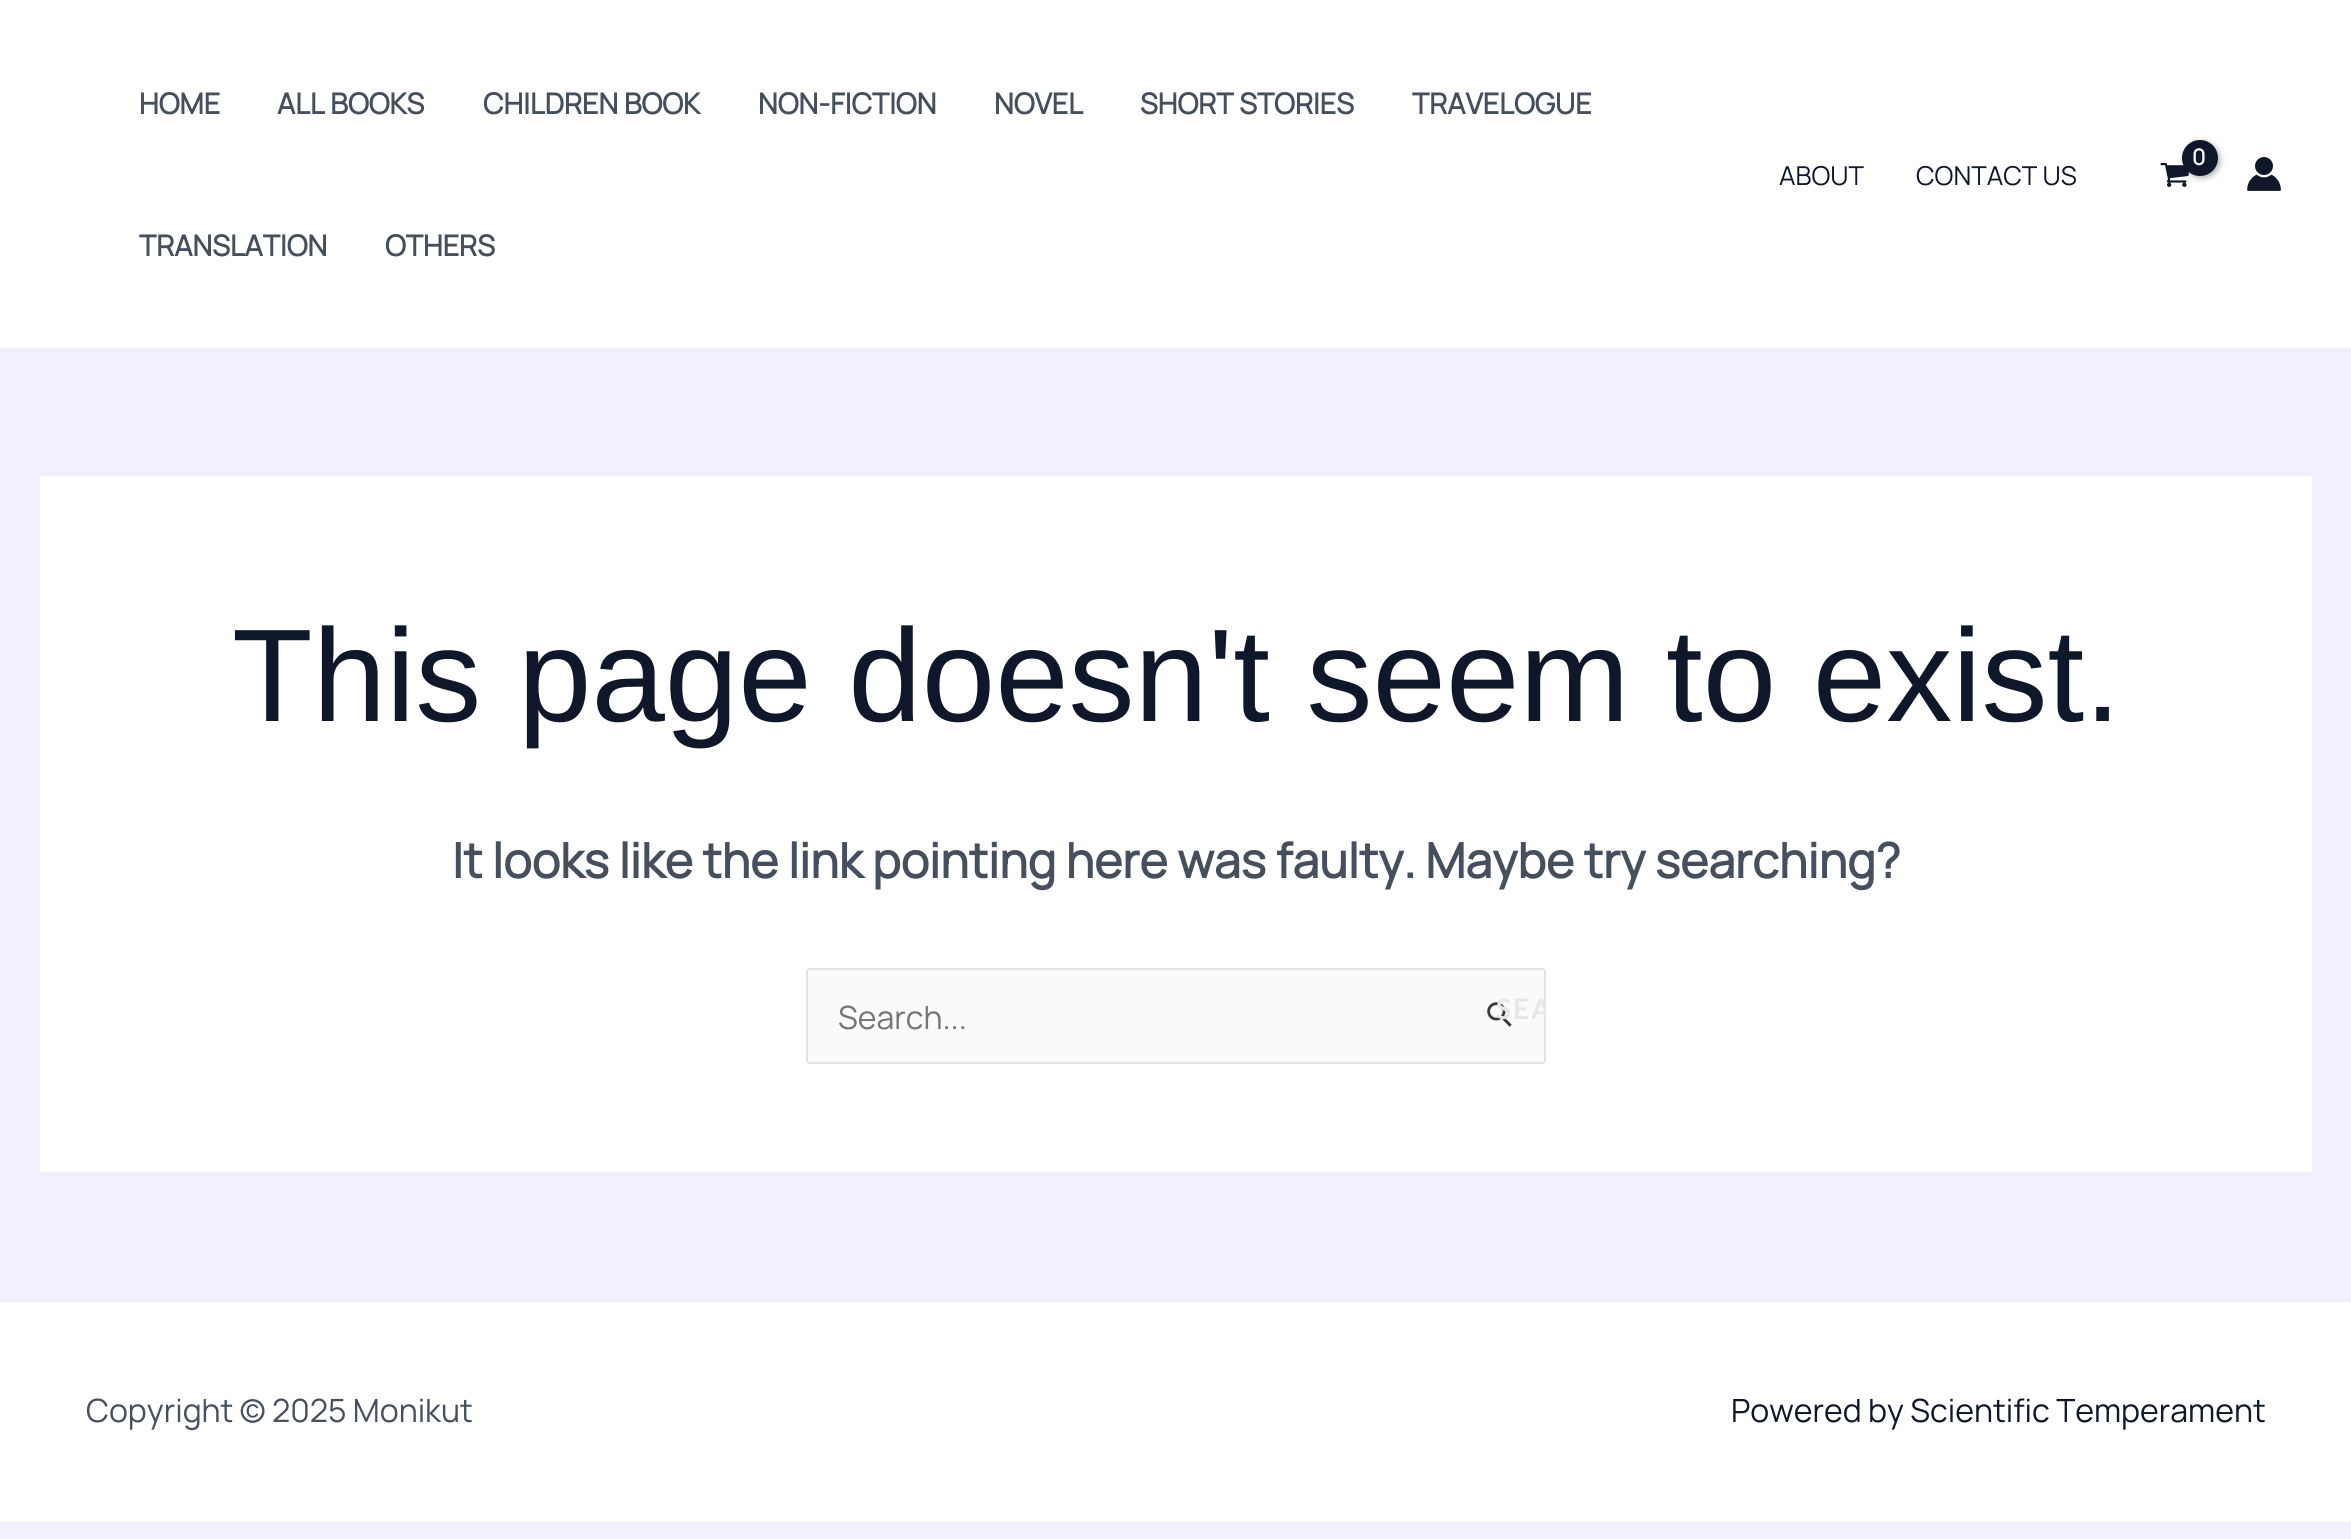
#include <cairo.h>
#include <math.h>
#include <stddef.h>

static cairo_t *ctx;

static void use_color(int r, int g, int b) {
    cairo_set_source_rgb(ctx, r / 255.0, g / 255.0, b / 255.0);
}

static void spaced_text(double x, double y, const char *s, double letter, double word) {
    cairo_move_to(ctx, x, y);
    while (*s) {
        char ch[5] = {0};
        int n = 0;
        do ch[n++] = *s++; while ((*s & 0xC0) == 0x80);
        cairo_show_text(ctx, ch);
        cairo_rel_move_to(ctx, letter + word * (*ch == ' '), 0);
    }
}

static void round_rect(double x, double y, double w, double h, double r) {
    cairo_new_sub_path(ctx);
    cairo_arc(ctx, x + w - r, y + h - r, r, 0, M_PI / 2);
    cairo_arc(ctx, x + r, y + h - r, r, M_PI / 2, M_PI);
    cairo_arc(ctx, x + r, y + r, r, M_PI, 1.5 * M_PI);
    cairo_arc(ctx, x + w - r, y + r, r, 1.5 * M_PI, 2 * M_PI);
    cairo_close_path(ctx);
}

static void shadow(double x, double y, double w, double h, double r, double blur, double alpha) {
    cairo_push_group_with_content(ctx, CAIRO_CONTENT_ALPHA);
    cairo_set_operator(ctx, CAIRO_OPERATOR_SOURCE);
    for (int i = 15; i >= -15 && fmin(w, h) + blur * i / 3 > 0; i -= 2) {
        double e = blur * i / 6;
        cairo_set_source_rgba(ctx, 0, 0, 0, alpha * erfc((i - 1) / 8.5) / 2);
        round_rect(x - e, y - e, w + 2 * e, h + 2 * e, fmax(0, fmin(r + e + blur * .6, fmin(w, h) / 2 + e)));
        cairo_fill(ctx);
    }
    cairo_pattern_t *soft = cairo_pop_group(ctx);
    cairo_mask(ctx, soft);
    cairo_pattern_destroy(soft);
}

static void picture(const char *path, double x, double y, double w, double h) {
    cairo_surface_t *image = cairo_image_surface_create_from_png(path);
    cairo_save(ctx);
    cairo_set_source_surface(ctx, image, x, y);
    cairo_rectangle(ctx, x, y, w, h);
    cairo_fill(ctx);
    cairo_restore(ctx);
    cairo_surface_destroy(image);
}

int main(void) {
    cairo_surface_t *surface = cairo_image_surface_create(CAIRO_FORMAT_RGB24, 2351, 1539);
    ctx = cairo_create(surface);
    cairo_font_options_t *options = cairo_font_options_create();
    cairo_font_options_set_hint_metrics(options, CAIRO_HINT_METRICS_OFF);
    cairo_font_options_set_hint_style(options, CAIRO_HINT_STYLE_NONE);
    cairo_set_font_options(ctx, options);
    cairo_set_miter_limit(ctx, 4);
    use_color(242, 240, 254);
    cairo_paint(ctx);
    use_color(255, 255, 255);
    cairo_rectangle(ctx, 0, 0, 2351, 348);
    cairo_fill(ctx);
    cairo_select_font_face(ctx, "Manrope", CAIRO_FONT_SLANT_NORMAL, CAIRO_FONT_WEIGHT_BOLD);
    cairo_set_font_size(ctx, 28.75);
    use_color(69, 79, 94);
    cairo_move_to(ctx, 139, 114);
    cairo_show_text(ctx, "HOME");
    cairo_move_to(ctx, 277, 114);
    cairo_show_text(ctx, "ALL BOOKS");
    cairo_move_to(ctx, 483, 114);
    cairo_show_text(ctx, "CHILDREN BOOK");
    cairo_move_to(ctx, 758, 114);
    cairo_show_text(ctx, "NON-FICTION");
    cairo_move_to(ctx, 994, 114);
    cairo_show_text(ctx, "NOVEL");
    cairo_move_to(ctx, 1140, 114);
    cairo_show_text(ctx, "SHORT STORIES");
    cairo_move_to(ctx, 1412, 114);
    cairo_show_text(ctx, "TRAVELOGUE");
    cairo_move_to(ctx, 139, 256);
    cairo_show_text(ctx, "TRANSLATION");
    cairo_move_to(ctx, 385, 256);
    cairo_show_text(ctx, "OTHERS");
    cairo_select_font_face(ctx, "Manrope ExtraLight", CAIRO_FONT_SLANT_NORMAL, CAIRO_FONT_WEIGHT_NORMAL);
    cairo_set_font_size(ctx, 26);
    use_color(15, 23, 42);
    cairo_move_to(ctx, 1779, 185);
    cairo_show_text(ctx, "ABOUT");
    cairo_move_to(ctx, 1916, 185);
    cairo_show_text(ctx, "CONTACT US");
    picture("img1.png", 2160, 163, 29, 24);
    use_color(0, 0, 0);
    shadow(2184, 142, 36, 36, 18, 3, 0.3);
    use_color(15, 23, 42);
    cairo_arc(ctx, 2200, 158, 18, 0, 2 * M_PI);
    cairo_fill(ctx);
    cairo_select_font_face(ctx, "Manrope", CAIRO_FONT_SLANT_NORMAL, CAIRO_FONT_WEIGHT_BOLD);
    cairo_set_font_size(ctx, 22);
    use_color(255, 255, 255);
    spaced_text(2192, 165, "0", -1, 0);
    picture("img2.png", 2247, 157, 34, 34);
    cairo_rectangle(ctx, 40, 476, 2272, 696);
    cairo_fill(ctx);
    cairo_select_font_face(ctx, "Liberation Sans", CAIRO_FONT_SLANT_NORMAL, CAIRO_FONT_WEIGHT_NORMAL);
    cairo_set_font_size(ctx, 132);
    use_color(15, 23, 42);
    cairo_move_to(ctx, 232, 721);
    cairo_show_text(ctx, "This page doesn't seem to exist.");
    cairo_select_font_face(ctx, "Manrope", CAIRO_FONT_SLANT_NORMAL, CAIRO_FONT_WEIGHT_BOLD);
    cairo_set_font_size(ctx, 48);
    use_color(69, 79, 94);
    cairo_move_to(ctx, 452, 878);
    cairo_show_text(ctx, "It looks like the link pointing here was faulty. Maybe try searching?");
    use_color(250, 250, 250);
    round_rect(807, 969, 738, 94, 3);
    cairo_fill_preserve(ctx);
    use_color(226, 226, 226);
    cairo_stroke(ctx);
    cairo_select_font_face(ctx, "Manrope ExtraLight", CAIRO_FONT_SLANT_NORMAL, CAIRO_FONT_WEIGHT_NORMAL);
    cairo_set_font_size(ctx, 32);
    use_color(117, 117, 117);
    cairo_move_to(ctx, 838, 1029);
    cairo_show_text(ctx, "Search...");
    picture("img3.png", 1487, 1002, 25, 25);
    cairo_save(ctx);
    round_rect(1456, 968, 90, 80, 4);
    cairo_clip(ctx);
    cairo_select_font_face(ctx, "Lato", CAIRO_FONT_SLANT_NORMAL, CAIRO_FONT_WEIGHT_BOLD);
    cairo_set_font_size(ctx, 28);
    use_color(231, 231, 231);
    spaced_text(1496, 1019, "SEA", 2, 0);
    cairo_restore(ctx);
    use_color(255, 255, 255);
    cairo_rectangle(ctx, 0, 1302, 2351, 220);
    cairo_fill(ctx);
    use_color(238, 238, 238);
    cairo_rectangle(ctx, 0, 1300, 2351, 2);
    cairo_fill(ctx);
    use_color(69, 79, 94);
    cairo_move_to(ctx, 86, 1422);
    cairo_show_text(ctx, "Copyright © 2025 Monikut");
    use_color(15, 23, 42);
    cairo_move_to(ctx, 1731, 1422);
    cairo_show_text(ctx, "Powered by Scientific Temperament");
    cairo_surface_write_to_png(surface, "result.png");
    cairo_font_options_destroy(options);
    cairo_destroy(ctx);
    cairo_surface_destroy(surface);
    return 0;
}
